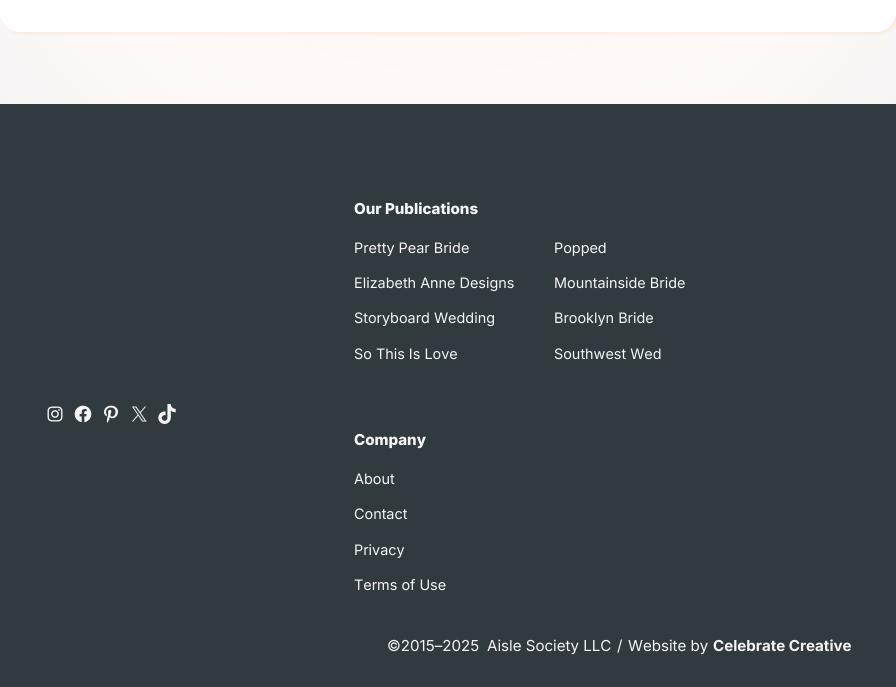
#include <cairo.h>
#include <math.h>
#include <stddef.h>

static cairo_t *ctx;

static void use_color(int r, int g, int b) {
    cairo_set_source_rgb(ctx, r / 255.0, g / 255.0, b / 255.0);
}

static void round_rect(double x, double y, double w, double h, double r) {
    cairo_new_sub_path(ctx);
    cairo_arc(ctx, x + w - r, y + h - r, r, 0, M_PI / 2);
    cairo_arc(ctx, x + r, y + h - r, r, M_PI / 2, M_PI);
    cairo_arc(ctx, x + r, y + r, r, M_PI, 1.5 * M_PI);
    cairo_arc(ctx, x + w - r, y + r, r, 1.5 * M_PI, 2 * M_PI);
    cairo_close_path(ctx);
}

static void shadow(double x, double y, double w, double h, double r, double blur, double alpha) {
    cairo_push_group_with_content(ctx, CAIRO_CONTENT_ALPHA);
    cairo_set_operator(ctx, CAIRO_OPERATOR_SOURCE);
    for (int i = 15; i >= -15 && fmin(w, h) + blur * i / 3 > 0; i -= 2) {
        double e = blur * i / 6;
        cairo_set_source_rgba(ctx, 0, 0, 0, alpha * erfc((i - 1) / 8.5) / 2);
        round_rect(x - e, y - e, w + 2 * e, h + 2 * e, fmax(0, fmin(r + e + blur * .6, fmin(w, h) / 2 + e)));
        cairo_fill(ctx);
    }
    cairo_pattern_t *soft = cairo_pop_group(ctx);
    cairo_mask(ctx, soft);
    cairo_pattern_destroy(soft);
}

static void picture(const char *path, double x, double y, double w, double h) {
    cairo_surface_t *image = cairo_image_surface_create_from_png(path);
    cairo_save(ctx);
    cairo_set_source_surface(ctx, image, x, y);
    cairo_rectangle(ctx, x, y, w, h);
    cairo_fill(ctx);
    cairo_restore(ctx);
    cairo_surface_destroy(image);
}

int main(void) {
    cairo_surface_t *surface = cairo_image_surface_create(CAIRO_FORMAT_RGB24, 896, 687);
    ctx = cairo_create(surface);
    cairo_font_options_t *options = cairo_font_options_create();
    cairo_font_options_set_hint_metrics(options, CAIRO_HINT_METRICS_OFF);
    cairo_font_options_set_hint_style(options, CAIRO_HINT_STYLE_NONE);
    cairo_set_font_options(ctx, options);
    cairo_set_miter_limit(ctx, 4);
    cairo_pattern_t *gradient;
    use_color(255, 255, 255);
    cairo_paint(ctx);
    gradient = cairo_pattern_create_radial(448, -284, 0, 448, -284, 593);
    cairo_pattern_add_color_stop_rgba(gradient, 0, 1, 0.922, 0.878, 1);
    cairo_pattern_add_color_stop_rgba(gradient, 0.3, 0.992, 0.965, 0.953, 1);
    cairo_pattern_add_color_stop_rgba(gradient, 0.7, 1, 0.98, 0.973, 1);
    cairo_pattern_add_color_stop_rgba(gradient, 1, 0.965, 0.961, 0.961, 1);
    cairo_set_source(ctx, gradient);
    cairo_pattern_destroy(gradient);
    cairo_rectangle(ctx, 0, 12, 896, 92);
    cairo_fill(ctx);
    use_color(255, 186, 148);
    shadow(2, -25, 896, 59, 20, 1.5, 0.25);
    use_color(255, 255, 255);
    round_rect(0, -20, 896, 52, 20);
    cairo_fill(ctx);
    use_color(49, 58, 63);
    cairo_rectangle(ctx, 0, 104, 896, 583);
    cairo_fill(ctx);
    picture("img1.png", 47, 406, 16, 16);
    picture("img2.png", 74, 405, 18, 18);
    picture("img3.png", 104, 405, 14, 18);
    picture("img4.png", 132, 406, 15, 16);
    picture("img5.png", 158, 404, 18, 20);
    cairo_select_font_face(ctx, "Inter ExtraBold", CAIRO_FONT_SLANT_NORMAL, CAIRO_FONT_WEIGHT_NORMAL);
    cairo_set_font_size(ctx, 15.1);
    use_color(246, 245, 245);
    cairo_move_to(ctx, 354, 214);
    cairo_show_text(ctx, "Our Publications");
    cairo_select_font_face(ctx, "Inter", CAIRO_FONT_SLANT_NORMAL, CAIRO_FONT_WEIGHT_NORMAL);
    cairo_set_font_size(ctx, 14.4);
    cairo_move_to(ctx, 354, 253);
    cairo_show_text(ctx, "Pretty Pear Bride");
    cairo_move_to(ctx, 554, 253);
    cairo_show_text(ctx, "Popped");
    cairo_move_to(ctx, 354, 288);
    cairo_show_text(ctx, "Elizabeth Anne Designs");
    cairo_move_to(ctx, 554, 288);
    cairo_show_text(ctx, "Mountainside Bride");
    cairo_move_to(ctx, 354, 323);
    cairo_show_text(ctx, "Storyboard Wedding");
    cairo_move_to(ctx, 554, 323);
    cairo_show_text(ctx, "Brooklyn Bride");
    cairo_move_to(ctx, 354, 359);
    cairo_show_text(ctx, "So This Is Love");
    cairo_move_to(ctx, 554, 359);
    cairo_show_text(ctx, "Southwest Wed");
    cairo_select_font_face(ctx, "Inter ExtraBold", CAIRO_FONT_SLANT_NORMAL, CAIRO_FONT_WEIGHT_NORMAL);
    cairo_set_font_size(ctx, 15.1);
    cairo_move_to(ctx, 354, 445);
    cairo_show_text(ctx, "Company");
    cairo_select_font_face(ctx, "Inter", CAIRO_FONT_SLANT_NORMAL, CAIRO_FONT_WEIGHT_NORMAL);
    cairo_set_font_size(ctx, 14.4);
    cairo_move_to(ctx, 354, 484);
    cairo_show_text(ctx, "About");
    cairo_move_to(ctx, 354, 519);
    cairo_show_text(ctx, "Contact");
    cairo_move_to(ctx, 354, 555);
    cairo_show_text(ctx, "Privacy");
    cairo_move_to(ctx, 354, 590);
    cairo_show_text(ctx, "Terms of Use");
    cairo_set_font_size(ctx, 15.1);
    cairo_move_to(ctx, 387, 651);
    cairo_show_text(ctx, "©2015–2025");
    cairo_move_to(ctx, 487, 651);
    cairo_show_text(ctx, "Aisle Society LLC");
    cairo_move_to(ctx, 617, 651);
    cairo_show_text(ctx, "/");
    cairo_move_to(ctx, 628, 651);
    cairo_show_text(ctx, "Website by");
    cairo_select_font_face(ctx, "Inter", CAIRO_FONT_SLANT_NORMAL, CAIRO_FONT_WEIGHT_BOLD);
    cairo_move_to(ctx, 713, 651);
    cairo_show_text(ctx, "Celebrate Creative");
    cairo_surface_write_to_png(surface, "result.png");
    cairo_font_options_destroy(options);
    cairo_destroy(ctx);
    cairo_surface_destroy(surface);
    return 0;
}
